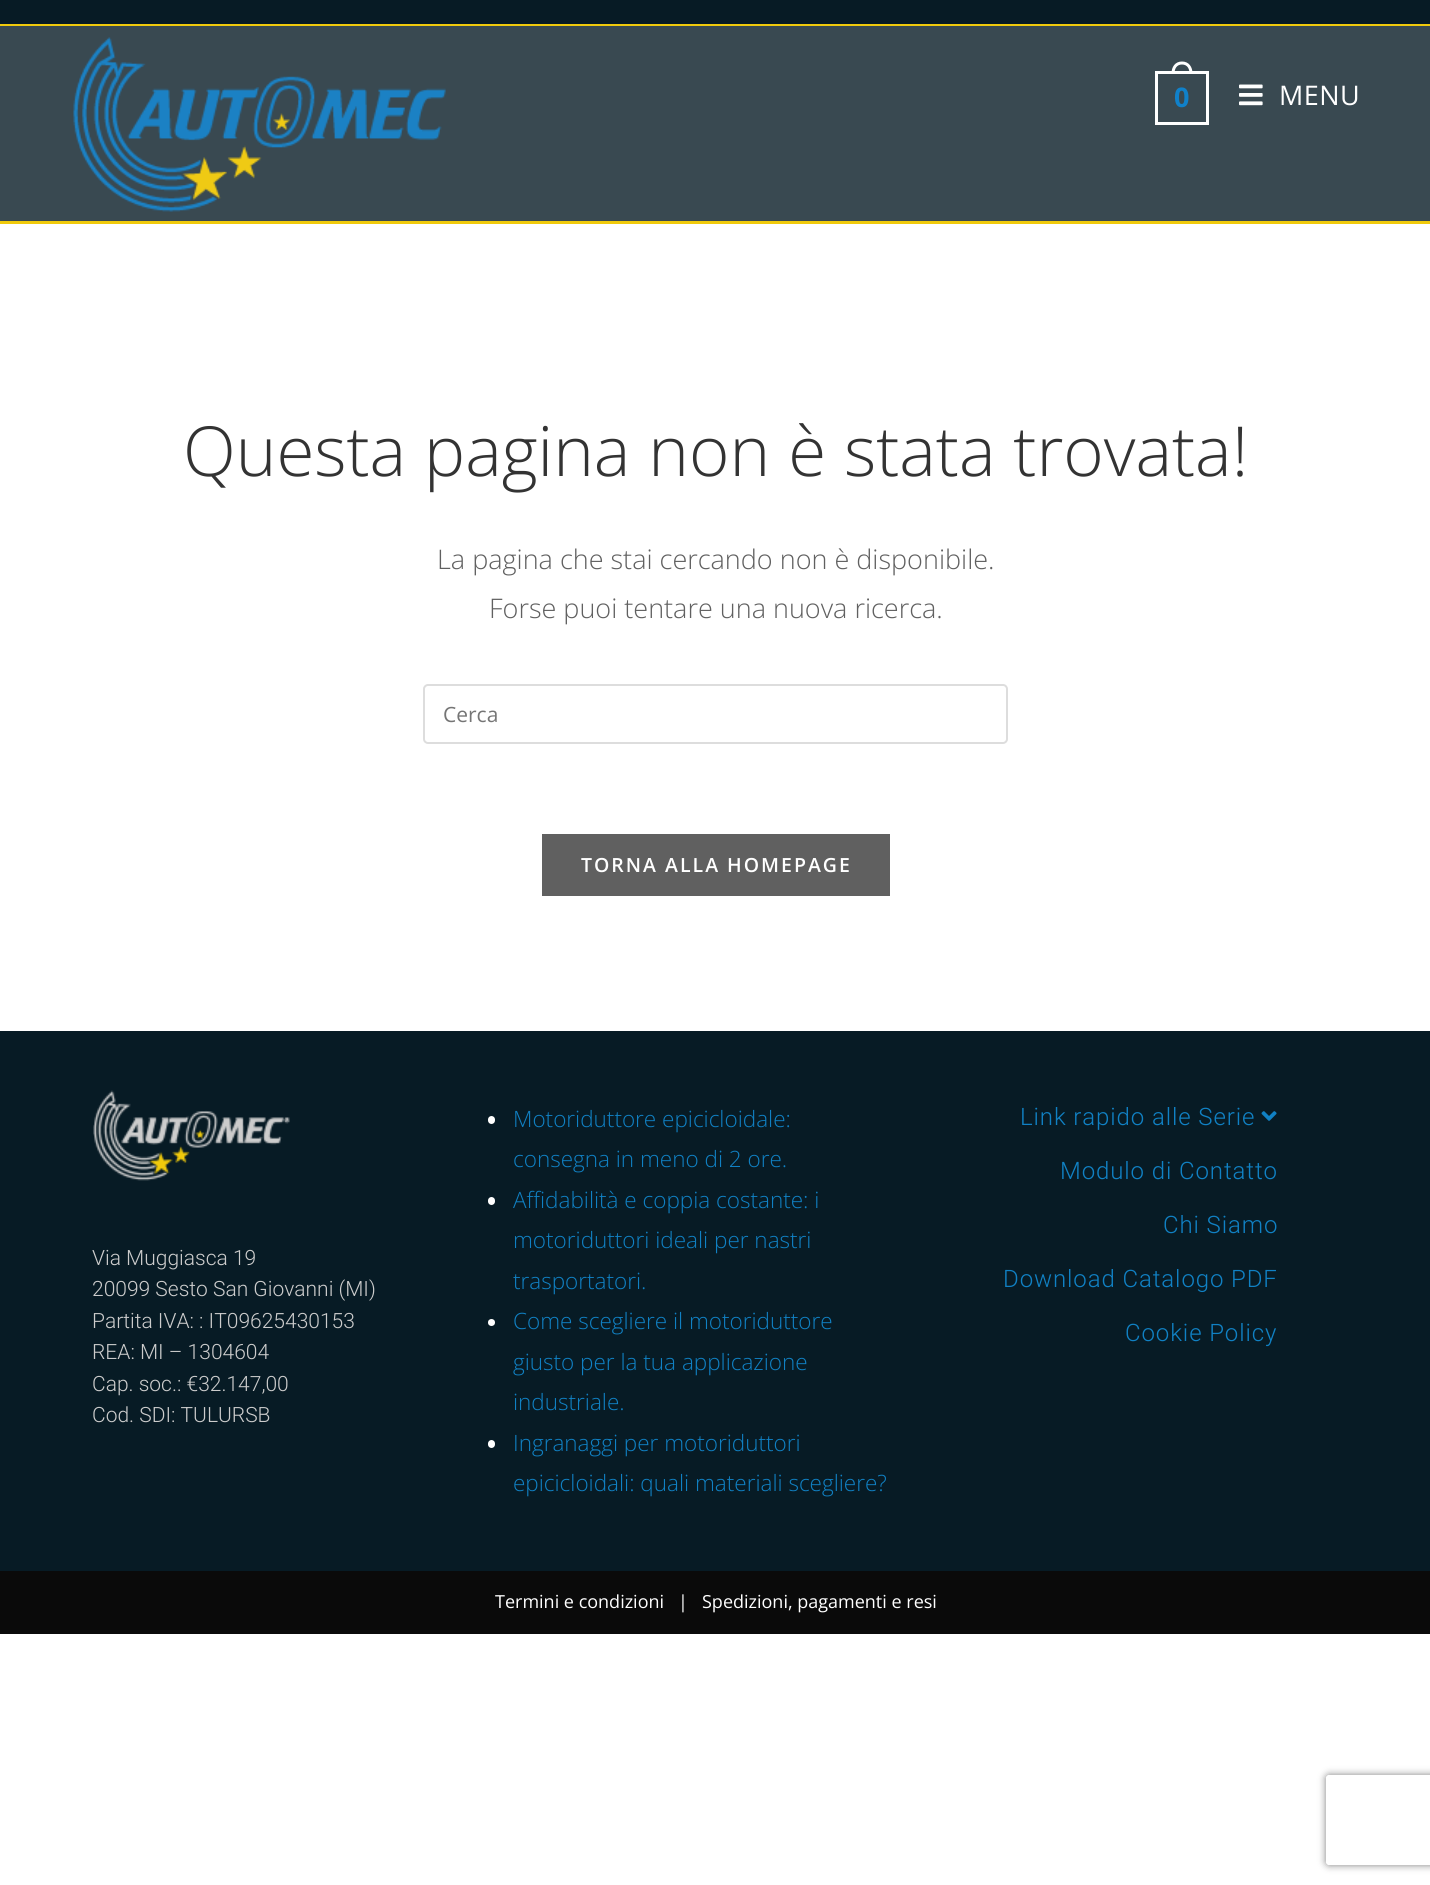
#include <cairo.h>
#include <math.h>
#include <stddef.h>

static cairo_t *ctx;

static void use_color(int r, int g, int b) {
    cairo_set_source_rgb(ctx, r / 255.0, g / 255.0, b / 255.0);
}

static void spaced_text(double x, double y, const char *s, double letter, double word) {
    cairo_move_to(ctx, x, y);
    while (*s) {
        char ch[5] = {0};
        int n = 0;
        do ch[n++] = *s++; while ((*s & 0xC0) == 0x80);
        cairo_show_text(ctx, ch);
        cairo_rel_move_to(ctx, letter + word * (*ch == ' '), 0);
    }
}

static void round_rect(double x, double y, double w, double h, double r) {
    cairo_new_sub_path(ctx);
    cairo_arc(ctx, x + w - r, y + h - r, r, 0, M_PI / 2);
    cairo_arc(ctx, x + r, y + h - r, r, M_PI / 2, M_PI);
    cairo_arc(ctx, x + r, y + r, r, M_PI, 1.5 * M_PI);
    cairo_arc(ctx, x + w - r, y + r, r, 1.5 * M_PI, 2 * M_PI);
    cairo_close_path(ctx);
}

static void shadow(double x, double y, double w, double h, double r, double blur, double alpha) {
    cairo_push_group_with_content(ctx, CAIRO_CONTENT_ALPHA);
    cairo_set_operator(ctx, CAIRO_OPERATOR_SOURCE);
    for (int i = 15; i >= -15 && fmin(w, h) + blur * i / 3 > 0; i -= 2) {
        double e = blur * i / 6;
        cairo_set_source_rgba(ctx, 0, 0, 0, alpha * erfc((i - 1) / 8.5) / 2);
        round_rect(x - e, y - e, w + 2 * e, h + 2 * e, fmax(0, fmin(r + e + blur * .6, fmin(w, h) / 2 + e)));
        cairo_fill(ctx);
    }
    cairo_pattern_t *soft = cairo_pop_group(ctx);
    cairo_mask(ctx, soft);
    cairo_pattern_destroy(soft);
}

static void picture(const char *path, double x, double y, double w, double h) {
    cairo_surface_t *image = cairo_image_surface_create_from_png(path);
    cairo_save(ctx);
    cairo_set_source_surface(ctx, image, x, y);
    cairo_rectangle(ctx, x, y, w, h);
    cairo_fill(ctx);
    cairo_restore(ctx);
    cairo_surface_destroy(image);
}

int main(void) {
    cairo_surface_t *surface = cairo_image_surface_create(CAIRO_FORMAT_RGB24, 1430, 1885);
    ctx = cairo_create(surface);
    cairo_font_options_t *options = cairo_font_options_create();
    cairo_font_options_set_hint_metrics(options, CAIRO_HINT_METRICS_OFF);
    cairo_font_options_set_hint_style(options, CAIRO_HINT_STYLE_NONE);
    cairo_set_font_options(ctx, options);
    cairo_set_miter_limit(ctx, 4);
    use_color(255, 255, 255);
    cairo_paint(ctx);
    use_color(7, 27, 37);
    cairo_rectangle(ctx, 0, 0, 1430, 24);
    cairo_fill(ctx);
    use_color(240, 202, 12);
    cairo_rectangle(ctx, 0, 24, 1430, 2);
    cairo_fill(ctx);
    use_color(57, 73, 81);
    cairo_rectangle(ctx, 0, 26, 1430, 195);
    cairo_fill(ctx);
    use_color(240, 202, 12);
    cairo_rectangle(ctx, 0, 221, 1430, 3);
    cairo_fill(ctx);
    picture("img1.png", 73, 37, 373, 175);
    cairo_rectangle(ctx, 1156.5, 72.5, 51, 51);
    use_color(255, 255, 255);
    cairo_set_line_width(ctx, 3);
    cairo_stroke(ctx);
    cairo_set_fill_rule(ctx, CAIRO_FILL_RULE_EVEN_ODD);
    cairo_new_path(ctx);
    cairo_move_to(ctx, 1182, 61.5);
    cairo_curve_to(ctx, 1189, 61.5, 1192.5, 67, 1192.5, 73.5);
    cairo_line_to(ctx, 1171.5, 73.5);
    cairo_curve_to(ctx, 1171.5, 67, 1175, 61.5, 1182, 61.5);
    cairo_close_path(ctx);
    cairo_move_to(ctx, 1182, 64.5);
    cairo_curve_to(ctx, 1187.5, 64.5, 1189.5, 69, 1189.5, 73.5);
    cairo_line_to(ctx, 1174.5, 73.5);
    cairo_curve_to(ctx, 1174.5, 69, 1176.5, 64.5, 1182, 64.5);
    cairo_close_path(ctx);
    cairo_fill(ctx);
    cairo_select_font_face(ctx, "Open Sans", CAIRO_FONT_SLANT_NORMAL, CAIRO_FONT_WEIGHT_BOLD);
    cairo_set_font_size(ctx, 27);
    use_color(16, 129, 202);
    spaced_text(1174, 107, "0", 0.5, 0);
    picture("img2.png", 1239, 84, 24, 22);
    cairo_select_font_face(ctx, "Open Sans", CAIRO_FONT_SLANT_NORMAL, CAIRO_FONT_WEIGHT_NORMAL);
    use_color(255, 255, 255);
    spaced_text(1279, 105, "MENU", 0.5, 0);
    cairo_select_font_face(ctx, "Open Sans Light", CAIRO_FONT_SLANT_NORMAL, CAIRO_FONT_WEIGHT_NORMAL);
    cairo_set_font_size(ctx, 69);
    use_color(51, 51, 51);
    cairo_move_to(ctx, 183, 476);
    cairo_show_text(ctx, "Questa pagina non è stata trovata!");
    cairo_set_font_size(ctx, 27);
    use_color(96, 96, 96);
    cairo_move_to(ctx, 437, 569);
    cairo_show_text(ctx, "La pagina che stai cercando non è disponibile.");
    cairo_move_to(ctx, 489, 618);
    cairo_show_text(ctx, "Forse puoi tentare una nuova ricerca.");
    round_rect(424, 685, 583, 58, 4);
    use_color(221, 221, 221);
    cairo_set_line_width(ctx, 2);
    cairo_stroke(ctx);
    cairo_select_font_face(ctx, "Open Sans", CAIRO_FONT_SLANT_NORMAL, CAIRO_FONT_WEIGHT_NORMAL);
    cairo_set_font_size(ctx, 21);
    use_color(117, 117, 117);
    cairo_move_to(ctx, 443, 722);
    cairo_show_text(ctx, "Cerca");
    use_color(96, 96, 96);
    cairo_rectangle(ctx, 542, 834, 348, 62);
    cairo_fill(ctx);
    cairo_select_font_face(ctx, "Open Sans SemiBold", CAIRO_FONT_SLANT_NORMAL, CAIRO_FONT_WEIGHT_NORMAL);
    cairo_set_font_size(ctx, 19.5);
    use_color(255, 255, 255);
    spaced_text(581, 872, "TORNA ALLA HOMEPAGE", 2, 0);
    use_color(7, 27, 37);
    cairo_rectangle(ctx, 0, 1031, 1430, 540);
    cairo_fill(ctx);
    picture("img3.png", 93, 1090, 197, 91);
    cairo_select_font_face(ctx, "Roboto Light", CAIRO_FONT_SLANT_NORMAL, CAIRO_FONT_WEIGHT_NORMAL);
    cairo_set_font_size(ctx, 21);
    use_color(204, 204, 204);
    cairo_move_to(ctx, 92, 1265);
    cairo_show_text(ctx, "Via Muggiasca 19");
    cairo_move_to(ctx, 92, 1296);
    cairo_show_text(ctx, "20099 Sesto San Giovanni (MI)");
    cairo_move_to(ctx, 92, 1328);
    cairo_show_text(ctx, "Partita IVA: : IT09625430153");
    cairo_move_to(ctx, 92, 1359);
    cairo_show_text(ctx, "REA: MI – 1304604");
    cairo_move_to(ctx, 92, 1391);
    cairo_show_text(ctx, "Cap. soc.: €32.147,00");
    cairo_move_to(ctx, 92, 1422);
    cairo_show_text(ctx, "Cod. SDI: TULURSB");
    use_color(255, 255, 255);
    round_rect(488, 1116, 7, 8, 3.5);
    cairo_fill(ctx);
    cairo_select_font_face(ctx, "Open Sans Light", CAIRO_FONT_SLANT_NORMAL, CAIRO_FONT_WEIGHT_NORMAL);
    cairo_set_font_size(ctx, 22.5);
    use_color(16, 129, 196);
    cairo_move_to(ctx, 513, 1127);
    cairo_show_text(ctx, "Motoriduttore epicicloidale:");
    cairo_move_to(ctx, 513, 1167);
    cairo_show_text(ctx, "consegna in meno di 2 ore.");
    use_color(255, 255, 255);
    round_rect(488, 1197, 7, 8, 3.5);
    cairo_fill(ctx);
    use_color(16, 129, 196);
    cairo_move_to(ctx, 513, 1208);
    cairo_show_text(ctx, "Affidabilità e coppia costante: i");
    cairo_move_to(ctx, 513, 1248);
    cairo_show_text(ctx, "motoriduttori ideali per nastri");
    cairo_move_to(ctx, 513, 1289);
    cairo_show_text(ctx, "trasportatori.");
    use_color(255, 255, 255);
    cairo_new_path(ctx);
    cairo_arc(ctx, 491.5, 1322.5, 3.5, 0, 2 * M_PI);
    cairo_fill(ctx);
    use_color(16, 129, 196);
    cairo_move_to(ctx, 513, 1329);
    cairo_show_text(ctx, "Come scegliere il motoriduttore");
    cairo_move_to(ctx, 513, 1370);
    cairo_show_text(ctx, "giusto per la tua applicazione");
    cairo_move_to(ctx, 513, 1410);
    cairo_show_text(ctx, "industriale.");
    use_color(255, 255, 255);
    round_rect(488, 1440, 7, 8, 3.5);
    cairo_fill(ctx);
    use_color(16, 129, 196);
    cairo_move_to(ctx, 513, 1451);
    cairo_show_text(ctx, "Ingranaggi per motoriduttori");
    cairo_move_to(ctx, 513, 1491);
    cairo_show_text(ctx, "epicicloidali: quali materiali scegliere?");
    cairo_select_font_face(ctx, "Roboto Light", CAIRO_FONT_SLANT_NORMAL, CAIRO_FONT_WEIGHT_NORMAL);
    cairo_set_font_size(ctx, 24);
    spaced_text(1020, 1125, "Link rapido alle Serie", 0.9, 0);
    picture("img4.png", 1261, 1111, 16, 10);
    spaced_text(1060, 1179, "Modulo di Contatto", 0.9, 0);
    spaced_text(1163, 1233, "Chi Siamo", 0.9, 0);
    spaced_text(1003, 1287, "Download Catalogo PDF", 0.9, 0);
    spaced_text(1125, 1341, "Cookie Policy", 0.9, 0);
    use_color(10, 10, 10);
    cairo_rectangle(ctx, 0, 1571, 1430, 63);
    cairo_fill(ctx);
    cairo_select_font_face(ctx, "Open Sans", CAIRO_FONT_SLANT_NORMAL, CAIRO_FONT_WEIGHT_NORMAL);
    cairo_set_font_size(ctx, 18);
    use_color(255, 255, 255);
    cairo_move_to(ctx, 495, 1608);
    cairo_show_text(ctx, "Termini e condizioni");
    cairo_move_to(ctx, 678, 1608);
    cairo_show_text(ctx, "|");
    cairo_move_to(ctx, 702, 1608);
    cairo_show_text(ctx, "Spedizioni, pagamenti e resi");
    cairo_save(ctx);
    cairo_new_path(ctx);
    cairo_move_to(ctx, 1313, 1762);
    cairo_line_to(ctx, 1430, 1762);
    cairo_line_to(ctx, 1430, 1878);
    cairo_line_to(ctx, 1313, 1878);
    cairo_close_path(ctx);
    cairo_move_to(ctx, 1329, 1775);
    cairo_line_to(ctx, 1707, 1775);
    cairo_curve_to(ctx, 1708.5, 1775, 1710, 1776.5, 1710, 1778);
    cairo_line_to(ctx, 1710, 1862);
    cairo_curve_to(ctx, 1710, 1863.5, 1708.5, 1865, 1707, 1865);
    cairo_line_to(ctx, 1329, 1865);
    cairo_curve_to(ctx, 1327.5, 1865, 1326, 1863.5, 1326, 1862);
    cairo_line_to(ctx, 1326, 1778);
    cairo_curve_to(ctx, 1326, 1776.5, 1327.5, 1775, 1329, 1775);
    cairo_close_path(ctx);
    cairo_clip(ctx);
    use_color(128, 128, 128);
    shadow(1326, 1775, 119, 90, 3, 4, 1);
    cairo_restore(ctx);
    cairo_surface_write_to_png(surface, "result.png");
    cairo_font_options_destroy(options);
    cairo_destroy(ctx);
    cairo_surface_destroy(surface);
    return 0;
}
